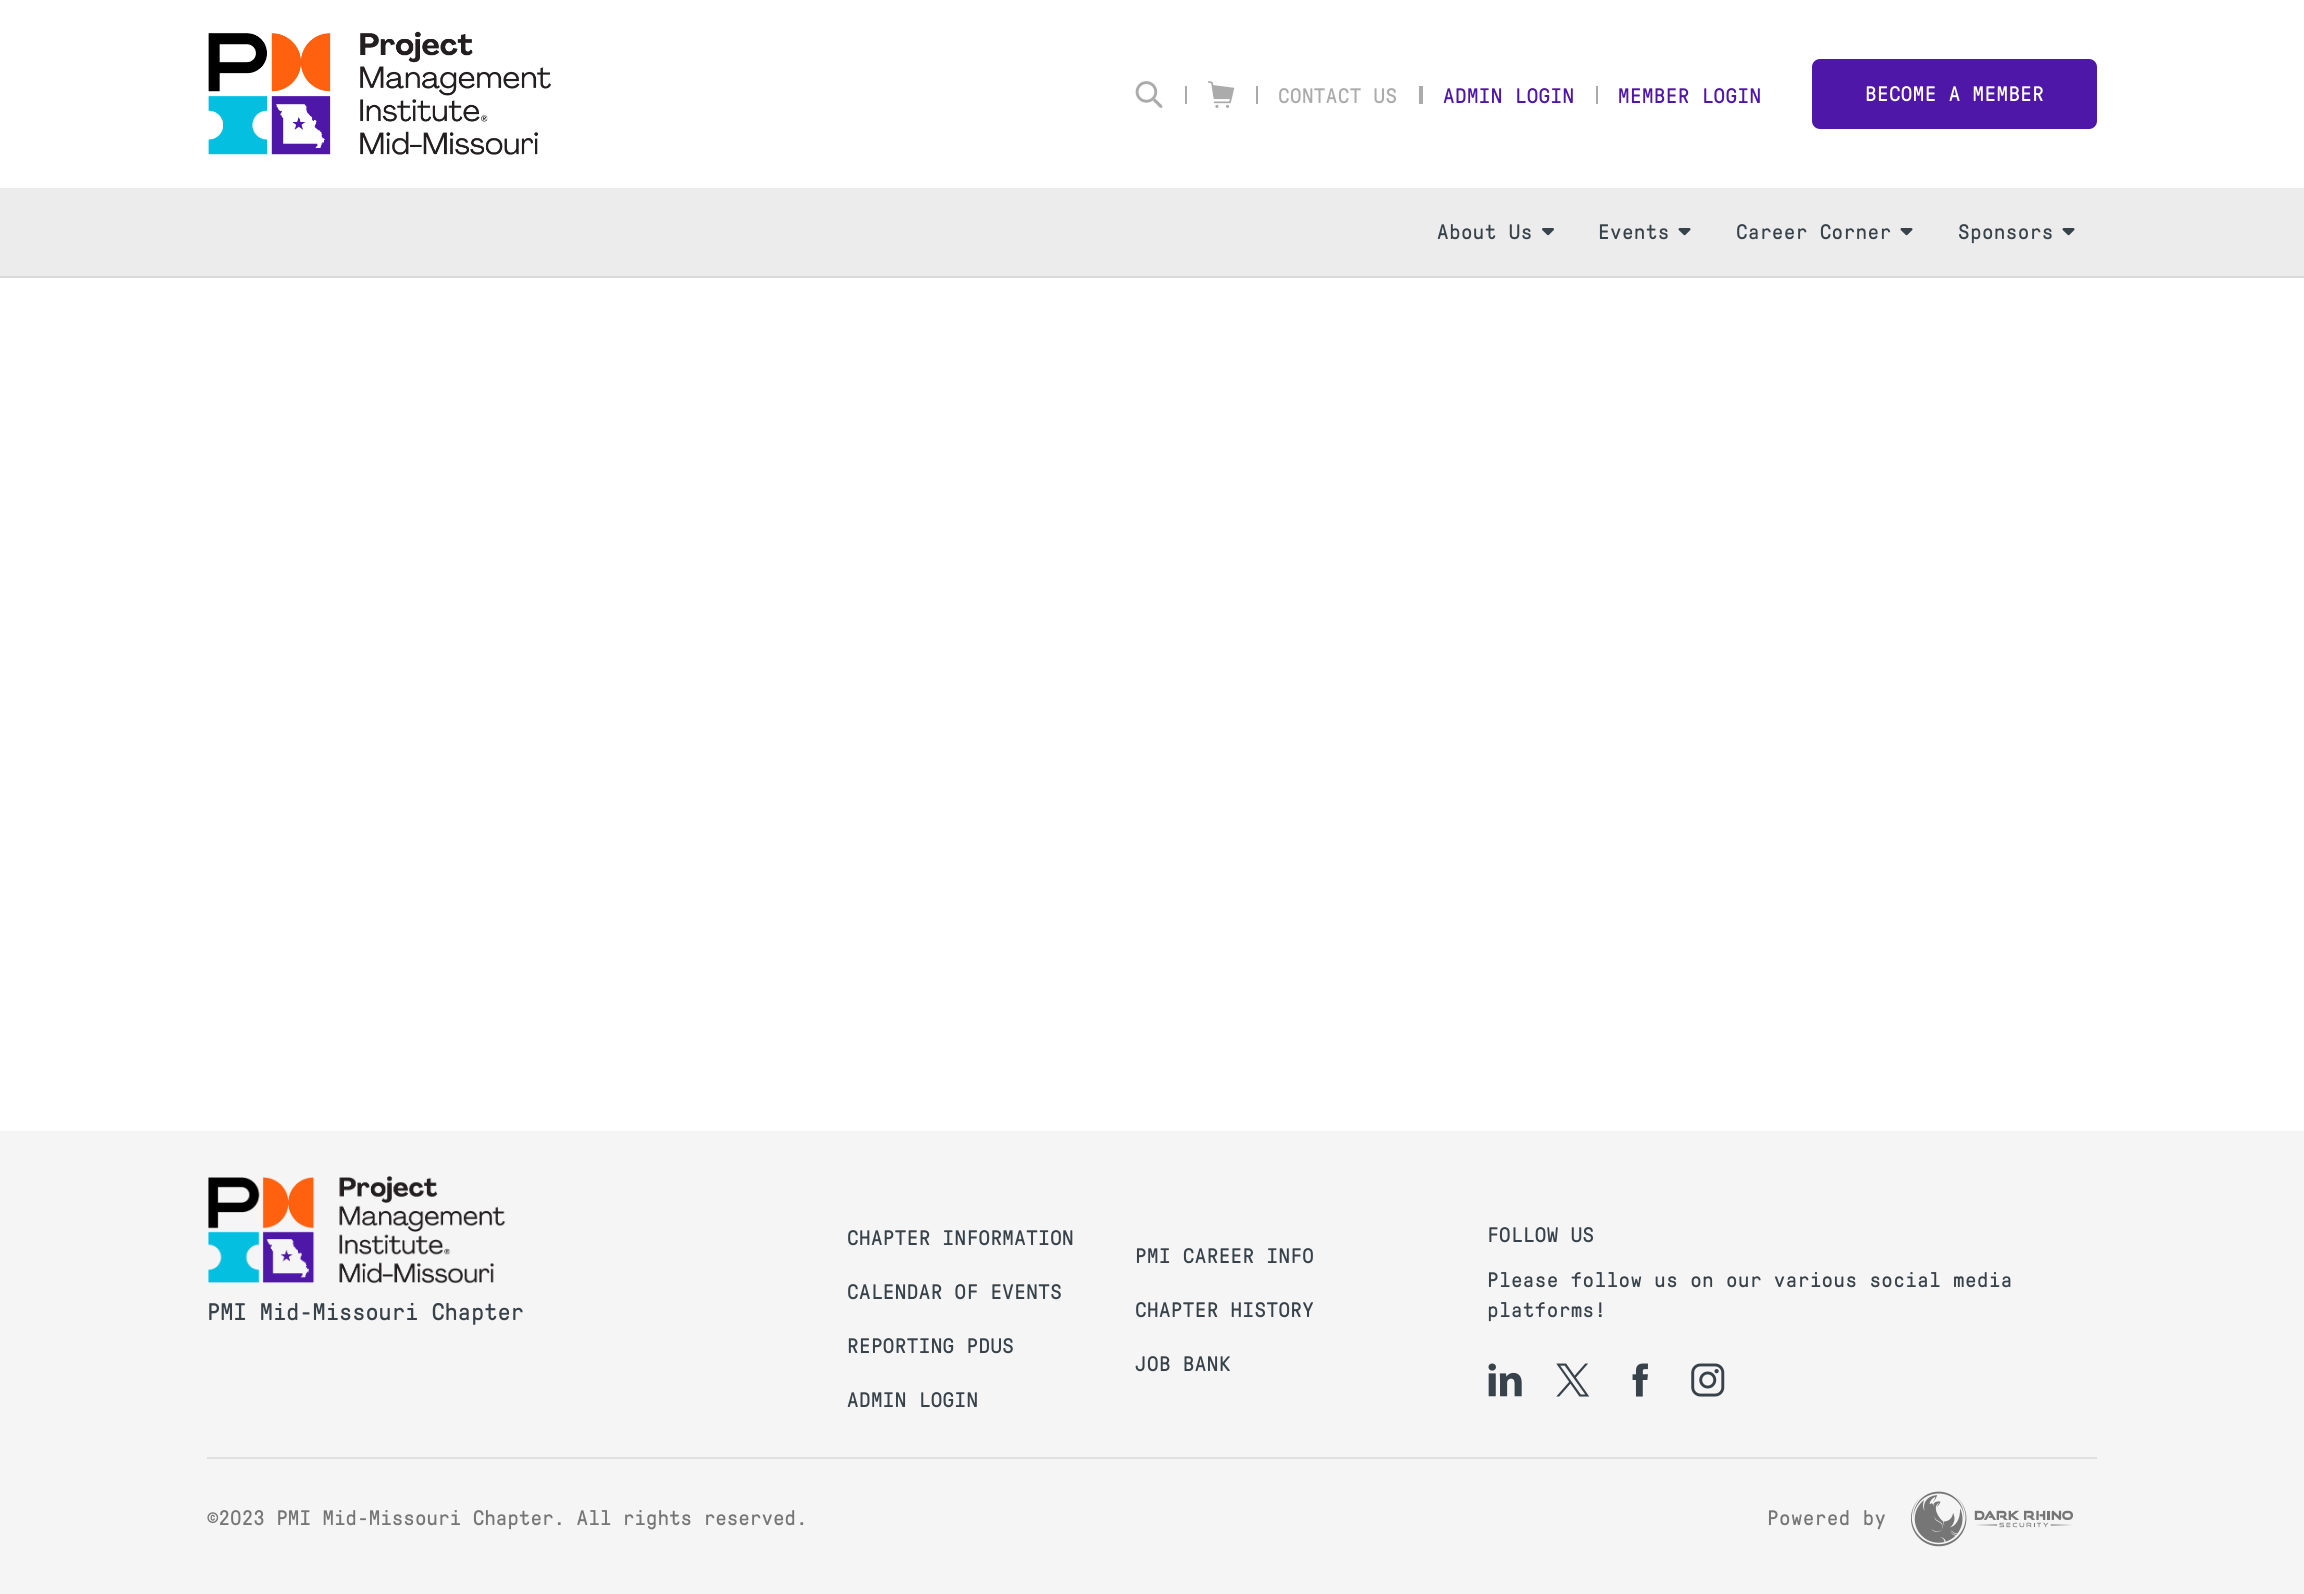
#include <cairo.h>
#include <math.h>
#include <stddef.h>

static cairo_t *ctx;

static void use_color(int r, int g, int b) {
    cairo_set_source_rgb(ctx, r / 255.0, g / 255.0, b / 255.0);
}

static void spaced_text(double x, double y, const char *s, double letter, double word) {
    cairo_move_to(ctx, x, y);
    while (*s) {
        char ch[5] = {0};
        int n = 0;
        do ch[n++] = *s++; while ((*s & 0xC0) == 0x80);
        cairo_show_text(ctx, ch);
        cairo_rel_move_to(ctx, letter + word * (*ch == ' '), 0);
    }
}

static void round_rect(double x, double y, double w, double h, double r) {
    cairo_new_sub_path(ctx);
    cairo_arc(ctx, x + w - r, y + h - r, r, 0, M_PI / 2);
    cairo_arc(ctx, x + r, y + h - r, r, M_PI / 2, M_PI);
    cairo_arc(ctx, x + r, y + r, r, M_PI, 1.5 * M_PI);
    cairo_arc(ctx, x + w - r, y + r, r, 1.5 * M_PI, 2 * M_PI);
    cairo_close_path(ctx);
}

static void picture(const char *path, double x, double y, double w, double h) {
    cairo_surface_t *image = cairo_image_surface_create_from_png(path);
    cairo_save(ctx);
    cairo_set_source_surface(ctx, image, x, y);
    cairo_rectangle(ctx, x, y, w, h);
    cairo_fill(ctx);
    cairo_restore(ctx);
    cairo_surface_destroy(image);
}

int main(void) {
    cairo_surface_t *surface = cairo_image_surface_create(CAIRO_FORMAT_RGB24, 2304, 1594);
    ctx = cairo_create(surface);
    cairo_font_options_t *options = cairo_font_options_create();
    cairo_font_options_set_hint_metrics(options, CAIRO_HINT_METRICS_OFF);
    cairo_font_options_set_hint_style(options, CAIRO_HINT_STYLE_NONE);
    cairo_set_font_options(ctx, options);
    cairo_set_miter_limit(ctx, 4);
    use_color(255, 255, 255);
    cairo_paint(ctx);
    picture("img1.png", 208, 31, 343, 124);
    picture("img2.png", 1135, 81, 28, 27);
    use_color(171, 171, 171);
    cairo_rectangle(ctx, 1185, 86, 2, 18);
    cairo_fill(ctx);
    picture("img3.png", 1207, 81, 28, 27);
    cairo_rectangle(ctx, 1256, 86, 2, 18);
    cairo_fill(ctx);
    cairo_select_font_face(ctx, "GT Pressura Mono", CAIRO_FONT_SLANT_NORMAL, CAIRO_FONT_WEIGHT_NORMAL);
    cairo_set_font_size(ctx, 21);
    spaced_text(1278, 103, "CONTACT US", 0.4, 0);
    cairo_rectangle(ctx, 1419, 86, 4, 18);
    cairo_fill(ctx);
    use_color(79, 23, 167);
    spaced_text(1443, 103, "ADMIN LOGIN", 0.4, 0);
    use_color(171, 171, 171);
    cairo_rectangle(ctx, 1596, 86, 2, 18);
    cairo_fill(ctx);
    use_color(79, 23, 167);
    spaced_text(1618, 103, "MEMBER LOGIN", 0.4, 0);
    round_rect(1812, 59, 285, 70, 8);
    cairo_fill(ctx);
    use_color(255, 255, 255);
    spaced_text(1865, 101, "BECOME A MEMBER", 0.4, 0);
    use_color(236, 236, 236);
    cairo_rectangle(ctx, 0, 188, 2304, 88);
    cairo_fill(ctx);
    use_color(217, 217, 217);
    cairo_rectangle(ctx, 0, 276, 2304, 2);
    cairo_fill(ctx);
    use_color(55, 66, 74);
    spaced_text(1437, 239, "About Us", 0.4, 0);
    picture("img4.png", 1542, 228, 12, 8);
    spaced_text(1598, 239, "Events", 0.4, 0);
    picture("img5.png", 1678, 228, 13, 8);
    spaced_text(1736, 239, "Career Corner", 0.4, 0);
    picture("img5.png", 1900, 228, 13, 8);
    spaced_text(1958, 239, "Sponsors", 0.4, 0);
    picture("img5.png", 2062, 228, 13, 8);
    use_color(245, 245, 245);
    cairo_rectangle(ctx, 0, 1131, 2304, 463);
    cairo_fill(ctx);
    picture("img6.png", 208, 1176, 298, 108);
    cairo_set_font_size(ctx, 24);
    use_color(55, 66, 74);
    cairo_move_to(ctx, 207, 1320);
    cairo_show_text(ctx, "PMI Mid-Missouri Chapter");
    cairo_set_font_size(ctx, 21);
    spaced_text(847, 1245, "CHAPTER INFORMATION", 0.4, 0);
    spaced_text(847, 1299, "CALENDAR OF EVENTS", 0.4, 0);
    spaced_text(847, 1353, "REPORTING PDUS", 0.4, 0);
    spaced_text(847, 1407, "ADMIN LOGIN", 0.4, 0);
    spaced_text(1135, 1263, "PMI CAREER INFO", 0.4, 0);
    spaced_text(1135, 1317, "CHAPTER HISTORY", 0.4, 0);
    spaced_text(1135, 1371, "JOB BANK", 0.4, 0);
    spaced_text(1487, 1242, "FOLLOW US", 0.4, 0);
    spaced_text(1487, 1287, "Please follow us on our various social media", 0.4, 0);
    spaced_text(1487, 1317, "platforms!", 0.4, 0);
    picture("img7.png", 1488, 1363, 34, 34);
    picture("img8.png", 1556, 1363, 34, 34);
    picture("img9.png", 1632, 1363, 16, 34);
    picture("img10.png", 1691, 1363, 34, 34);
    use_color(225, 225, 225);
    cairo_rectangle(ctx, 207, 1457, 1890, 2);
    cairo_fill(ctx);
    use_color(118, 118, 118);
    cairo_move_to(ctx, 207, 1525);
    cairo_show_text(ctx, "©2023 PMI Mid-Missouri Chapter. All rights reserved.");
    spaced_text(1767, 1525, "Powered by", 0.4, 0);
    picture("img11.png", 1911, 1491, 162, 56);
    cairo_surface_write_to_png(surface, "result.png");
    cairo_font_options_destroy(options);
    cairo_destroy(ctx);
    cairo_surface_destroy(surface);
    return 0;
}
